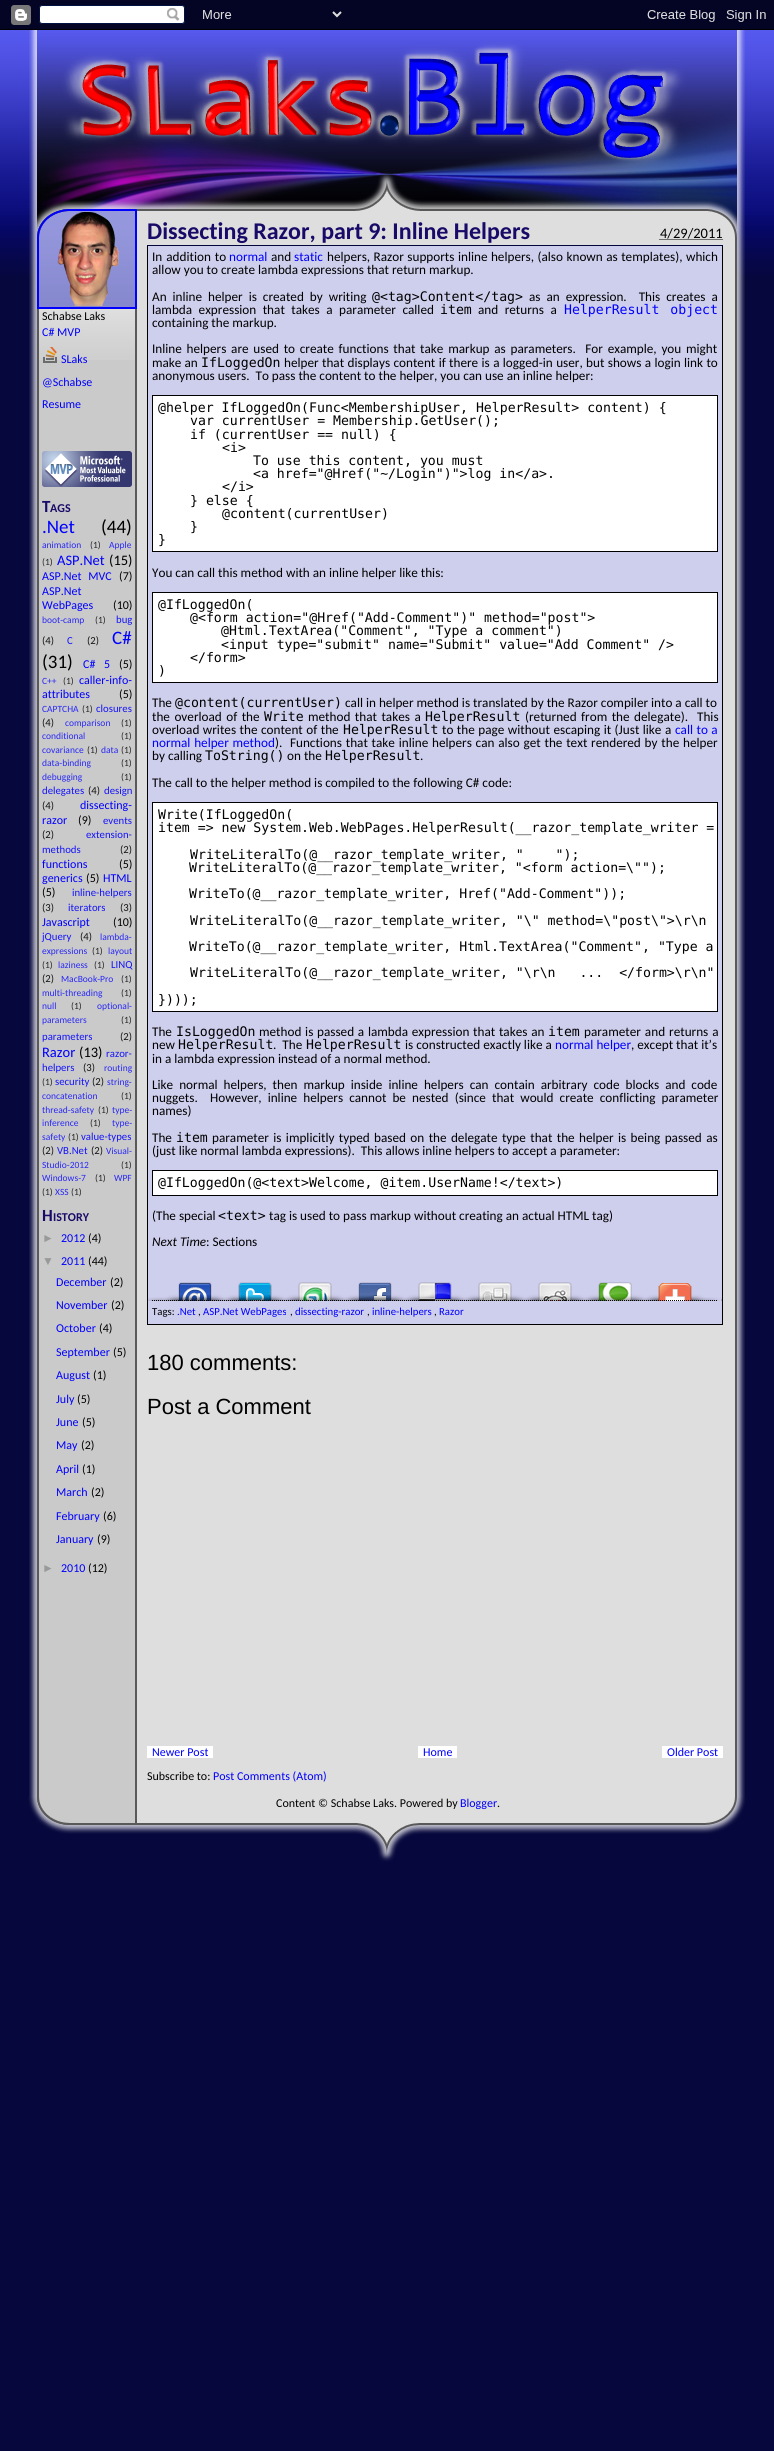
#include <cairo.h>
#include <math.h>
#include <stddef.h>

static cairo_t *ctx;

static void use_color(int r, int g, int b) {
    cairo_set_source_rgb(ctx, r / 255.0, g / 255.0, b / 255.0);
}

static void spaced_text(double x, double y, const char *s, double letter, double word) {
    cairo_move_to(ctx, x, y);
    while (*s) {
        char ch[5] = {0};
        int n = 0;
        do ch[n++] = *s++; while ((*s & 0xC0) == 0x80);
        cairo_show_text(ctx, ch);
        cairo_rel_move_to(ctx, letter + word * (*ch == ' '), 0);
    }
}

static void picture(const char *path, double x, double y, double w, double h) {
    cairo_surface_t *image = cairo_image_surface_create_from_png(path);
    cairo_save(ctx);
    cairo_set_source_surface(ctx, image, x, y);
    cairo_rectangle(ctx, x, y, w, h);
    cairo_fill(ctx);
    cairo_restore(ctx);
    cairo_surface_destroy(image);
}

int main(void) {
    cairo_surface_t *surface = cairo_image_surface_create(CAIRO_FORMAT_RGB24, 774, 2451);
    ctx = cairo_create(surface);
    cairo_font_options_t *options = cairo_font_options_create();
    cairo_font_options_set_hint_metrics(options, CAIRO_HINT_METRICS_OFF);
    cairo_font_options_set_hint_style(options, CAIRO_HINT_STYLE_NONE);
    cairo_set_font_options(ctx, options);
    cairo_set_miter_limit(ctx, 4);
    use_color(6, 7, 60);
    cairo_paint(ctx);
    picture("img1.png", 0, 0, 774, 30);
    picture("img2.png", 0, 30, 774, 245);
    picture("img3.png", 29, 30, 716, 1767);
    picture("img4.png", 37, 30, 700, 208);
    picture("img5.png", 37, 238, 100, 122);
    cairo_select_font_face(ctx, "Carlito", CAIRO_FONT_SLANT_NORMAL, CAIRO_FONT_WEIGHT_NORMAL);
    cairo_set_font_size(ctx, 12);
    use_color(0, 0, 0);
    cairo_move_to(ctx, 42, 320);
    cairo_show_text(ctx, "Schabse Laks");
    use_color(0, 0, 255);
    cairo_move_to(ctx, 42, 336);
    cairo_show_text(ctx, "C# MVP");
    picture("img6.png", 43, 347, 14, 16);
    cairo_move_to(ctx, 61, 363);
    cairo_show_text(ctx, "SLaks");
    cairo_move_to(ctx, 42, 386);
    cairo_show_text(ctx, "@Schabse");
    cairo_move_to(ctx, 42, 408);
    cairo_show_text(ctx, "Resume");
    picture("img7.png", 42, 451, 90, 36);
    cairo_select_font_face(ctx, "Carlito", CAIRO_FONT_SLANT_NORMAL, CAIRO_FONT_WEIGHT_BOLD);
    cairo_set_font_size(ctx, 17);
    use_color(24, 10, 104);
    cairo_move_to(ctx, 42, 512);
    cairo_show_text(ctx, "T");
    cairo_set_font_size(ctx, 12);
    cairo_move_to(ctx, 50, 512);
    cairo_show_text(ctx, "AGS");
    cairo_select_font_face(ctx, "Carlito", CAIRO_FONT_SLANT_NORMAL, CAIRO_FONT_WEIGHT_NORMAL);
    cairo_set_font_size(ctx, 19);
    use_color(0, 0, 255);
    cairo_move_to(ctx, 42, 533);
    cairo_show_text(ctx, ".Net");
    use_color(0, 0, 0);
    cairo_move_to(ctx, 101, 533);
    cairo_show_text(ctx, "(44)");
    cairo_set_font_size(ctx, 9.5);
    use_color(40, 40, 244);
    cairo_move_to(ctx, 42, 548);
    cairo_show_text(ctx, "animation");
    use_color(40, 40, 40);
    cairo_move_to(ctx, 90, 548);
    cairo_show_text(ctx, "(1)");
    use_color(40, 40, 244);
    cairo_move_to(ctx, 109, 548);
    cairo_show_text(ctx, "Apple");
    use_color(40, 40, 40);
    cairo_move_to(ctx, 42, 565);
    cairo_show_text(ctx, "(1)");
    cairo_set_font_size(ctx, 14.5);
    use_color(0, 0, 255);
    cairo_move_to(ctx, 57, 565);
    cairo_show_text(ctx, "ASP.Net");
    use_color(0, 0, 0);
    cairo_move_to(ctx, 109, 565);
    cairo_show_text(ctx, "(15)");
    cairo_set_font_size(ctx, 12);
    use_color(0, 0, 255);
    spaced_text(42, 580, "ASP.Net MVC", 0, 4);
    use_color(0, 0, 0);
    cairo_move_to(ctx, 119, 580);
    cairo_show_text(ctx, "(7)");
    use_color(0, 0, 255);
    cairo_move_to(ctx, 42, 595);
    cairo_show_text(ctx, "ASP.Net");
    cairo_move_to(ctx, 42, 609);
    cairo_show_text(ctx, "WebPages");
    use_color(0, 0, 0);
    cairo_move_to(ctx, 113, 609);
    cairo_show_text(ctx, "(10)");
    cairo_set_font_size(ctx, 9.5);
    use_color(40, 40, 244);
    cairo_move_to(ctx, 42, 623);
    cairo_show_text(ctx, "boot-camp");
    use_color(40, 40, 40);
    cairo_move_to(ctx, 95, 623);
    cairo_show_text(ctx, "(1)");
    cairo_set_font_size(ctx, 10.75);
    use_color(20, 20, 250);
    cairo_move_to(ctx, 116, 623);
    cairo_show_text(ctx, "bug");
    use_color(20, 20, 20);
    cairo_move_to(ctx, 42, 644);
    cairo_show_text(ctx, "(4)");
    use_color(20, 20, 250);
    cairo_move_to(ctx, 67, 644);
    cairo_show_text(ctx, "C");
    use_color(20, 20, 20);
    cairo_move_to(ctx, 87, 644);
    cairo_show_text(ctx, "(2)");
    cairo_set_font_size(ctx, 19);
    use_color(0, 0, 255);
    cairo_move_to(ctx, 112, 644);
    cairo_show_text(ctx, "C#");
    use_color(0, 0, 0);
    cairo_move_to(ctx, 42, 668);
    cairo_show_text(ctx, "(31)");
    cairo_set_font_size(ctx, 12);
    use_color(0, 0, 255);
    spaced_text(83, 668, "C# 5", 0, 6);
    use_color(0, 0, 0);
    cairo_move_to(ctx, 119, 668);
    cairo_show_text(ctx, "(5)");
    cairo_set_font_size(ctx, 9.5);
    use_color(40, 40, 244);
    cairo_move_to(ctx, 42, 684);
    cairo_show_text(ctx, "C++");
    use_color(40, 40, 40);
    cairo_move_to(ctx, 63, 684);
    cairo_show_text(ctx, "(1)");
    cairo_set_font_size(ctx, 12);
    use_color(0, 0, 255);
    cairo_move_to(ctx, 79, 684);
    cairo_show_text(ctx, "caller-info-");
    cairo_move_to(ctx, 42, 698);
    cairo_show_text(ctx, "attributes");
    use_color(0, 0, 0);
    cairo_move_to(ctx, 119, 698);
    cairo_show_text(ctx, "(5)");
    cairo_set_font_size(ctx, 9.5);
    use_color(40, 40, 244);
    cairo_move_to(ctx, 42, 712);
    cairo_show_text(ctx, "CAPTCHA");
    use_color(40, 40, 40);
    cairo_move_to(ctx, 82, 712);
    cairo_show_text(ctx, "(1)");
    cairo_set_font_size(ctx, 10.75);
    use_color(20, 20, 250);
    cairo_move_to(ctx, 96, 712);
    cairo_show_text(ctx, "closures");
    use_color(20, 20, 20);
    cairo_move_to(ctx, 42, 726);
    cairo_show_text(ctx, "(4)");
    cairo_set_font_size(ctx, 9.5);
    use_color(40, 40, 244);
    cairo_move_to(ctx, 65, 726);
    cairo_show_text(ctx, "comparison");
    use_color(40, 40, 40);
    cairo_move_to(ctx, 121, 726);
    cairo_show_text(ctx, "(1)");
    use_color(40, 40, 244);
    cairo_move_to(ctx, 42, 739);
    cairo_show_text(ctx, "conditional");
    use_color(40, 40, 40);
    cairo_move_to(ctx, 121, 739);
    cairo_show_text(ctx, "(1)");
    use_color(40, 40, 244);
    cairo_move_to(ctx, 42, 753);
    cairo_show_text(ctx, "covariance");
    use_color(40, 40, 40);
    cairo_move_to(ctx, 87, 753);
    cairo_show_text(ctx, "(1)");
    use_color(40, 40, 244);
    cairo_move_to(ctx, 101, 753);
    cairo_show_text(ctx, "data");
    use_color(40, 40, 40);
    cairo_move_to(ctx, 121, 753);
    cairo_show_text(ctx, "(1)");
    use_color(40, 40, 244);
    cairo_move_to(ctx, 42, 766);
    cairo_show_text(ctx, "data-binding");
    use_color(40, 40, 40);
    cairo_move_to(ctx, 121, 766);
    cairo_show_text(ctx, "(1)");
    use_color(40, 40, 244);
    cairo_move_to(ctx, 42, 780);
    cairo_show_text(ctx, "debugging");
    use_color(40, 40, 40);
    cairo_move_to(ctx, 121, 780);
    cairo_show_text(ctx, "(1)");
    cairo_set_font_size(ctx, 10.75);
    use_color(20, 20, 250);
    cairo_move_to(ctx, 42, 794);
    cairo_show_text(ctx, "delegates");
    use_color(20, 20, 20);
    cairo_move_to(ctx, 88, 794);
    cairo_show_text(ctx, "(4)");
    use_color(20, 20, 250);
    cairo_move_to(ctx, 104, 794);
    cairo_show_text(ctx, "design");
    use_color(20, 20, 20);
    cairo_move_to(ctx, 42, 809);
    cairo_show_text(ctx, "(4)");
    cairo_set_font_size(ctx, 12);
    use_color(0, 0, 255);
    cairo_move_to(ctx, 80, 809);
    cairo_show_text(ctx, "dissecting-");
    cairo_move_to(ctx, 42, 824);
    cairo_show_text(ctx, "razor");
    use_color(0, 0, 0);
    cairo_move_to(ctx, 78, 824);
    cairo_show_text(ctx, "(9)");
    cairo_set_font_size(ctx, 10.75);
    use_color(20, 20, 250);
    cairo_move_to(ctx, 103, 824);
    cairo_show_text(ctx, "events");
    use_color(20, 20, 20);
    cairo_move_to(ctx, 42, 838);
    cairo_show_text(ctx, "(2)");
    use_color(20, 20, 250);
    cairo_move_to(ctx, 86, 838);
    cairo_show_text(ctx, "extension-");
    cairo_move_to(ctx, 42, 853);
    cairo_show_text(ctx, "methods");
    use_color(20, 20, 20);
    cairo_move_to(ctx, 120, 853);
    cairo_show_text(ctx, "(2)");
    cairo_set_font_size(ctx, 12);
    use_color(0, 0, 255);
    cairo_move_to(ctx, 42, 868);
    cairo_show_text(ctx, "functions");
    use_color(0, 0, 0);
    cairo_move_to(ctx, 119, 868);
    cairo_show_text(ctx, "(5)");
    use_color(0, 0, 255);
    cairo_move_to(ctx, 42, 882);
    cairo_show_text(ctx, "generics");
    use_color(0, 0, 0);
    cairo_move_to(ctx, 86, 882);
    cairo_show_text(ctx, "(5)");
    use_color(0, 0, 255);
    cairo_move_to(ctx, 103, 882);
    cairo_show_text(ctx, "HTML");
    use_color(0, 0, 0);
    cairo_move_to(ctx, 42, 896);
    cairo_show_text(ctx, "(5)");
    cairo_set_font_size(ctx, 10.75);
    use_color(20, 20, 250);
    cairo_move_to(ctx, 72, 896);
    cairo_show_text(ctx, "inline-helpers");
    use_color(20, 20, 20);
    cairo_move_to(ctx, 42, 911);
    cairo_show_text(ctx, "(3)");
    use_color(20, 20, 250);
    cairo_move_to(ctx, 68, 911);
    cairo_show_text(ctx, "iterators");
    use_color(20, 20, 20);
    cairo_move_to(ctx, 120, 911);
    cairo_show_text(ctx, "(3)");
    cairo_set_font_size(ctx, 12);
    use_color(0, 0, 255);
    cairo_move_to(ctx, 42, 926);
    cairo_show_text(ctx, "Javascript");
    use_color(0, 0, 0);
    cairo_move_to(ctx, 113, 926);
    cairo_show_text(ctx, "(10)");
    cairo_set_font_size(ctx, 10.75);
    use_color(20, 20, 250);
    cairo_move_to(ctx, 42, 940);
    cairo_show_text(ctx, "jQuery");
    use_color(20, 20, 20);
    cairo_move_to(ctx, 80, 940);
    cairo_show_text(ctx, "(4)");
    cairo_set_font_size(ctx, 9.5);
    use_color(40, 40, 244);
    cairo_move_to(ctx, 100, 940);
    cairo_show_text(ctx, "lambda-");
    cairo_move_to(ctx, 42, 954);
    cairo_show_text(ctx, "expressions");
    use_color(40, 40, 40);
    cairo_move_to(ctx, 92, 954);
    cairo_show_text(ctx, "(1)");
    use_color(40, 40, 244);
    cairo_move_to(ctx, 108, 954);
    cairo_show_text(ctx, "layout");
    use_color(40, 40, 40);
    cairo_move_to(ctx, 42, 968);
    cairo_show_text(ctx, "(1)");
    use_color(40, 40, 244);
    cairo_move_to(ctx, 58, 968);
    cairo_show_text(ctx, "laziness");
    use_color(40, 40, 40);
    cairo_move_to(ctx, 94, 968);
    cairo_show_text(ctx, "(1)");
    cairo_set_font_size(ctx, 10.75);
    use_color(20, 20, 250);
    cairo_move_to(ctx, 111, 968);
    cairo_show_text(ctx, "LINQ");
    use_color(20, 20, 20);
    cairo_move_to(ctx, 42, 982);
    cairo_show_text(ctx, "(2)");
    cairo_set_font_size(ctx, 9.5);
    use_color(40, 40, 244);
    cairo_move_to(ctx, 61, 982);
    cairo_show_text(ctx, "MacBook-Pro");
    use_color(40, 40, 40);
    cairo_move_to(ctx, 121, 982);
    cairo_show_text(ctx, "(1)");
    use_color(40, 40, 244);
    cairo_move_to(ctx, 42, 996);
    cairo_show_text(ctx, "multi-threading");
    use_color(40, 40, 40);
    cairo_move_to(ctx, 121, 996);
    cairo_show_text(ctx, "(1)");
    use_color(40, 40, 244);
    cairo_move_to(ctx, 42, 1009);
    cairo_show_text(ctx, "null");
    use_color(40, 40, 40);
    cairo_move_to(ctx, 71, 1009);
    cairo_show_text(ctx, "(1)");
    use_color(40, 40, 244);
    cairo_move_to(ctx, 97, 1009);
    cairo_show_text(ctx, "optional-");
    cairo_move_to(ctx, 42, 1023);
    cairo_show_text(ctx, "parameters");
    use_color(40, 40, 40);
    cairo_move_to(ctx, 121, 1023);
    cairo_show_text(ctx, "(1)");
    cairo_set_font_size(ctx, 10.75);
    use_color(20, 20, 250);
    cairo_move_to(ctx, 42, 1040);
    cairo_show_text(ctx, "parameters");
    use_color(20, 20, 20);
    cairo_move_to(ctx, 120, 1040);
    cairo_show_text(ctx, "(2)");
    cairo_set_font_size(ctx, 14.5);
    use_color(0, 0, 255);
    cairo_move_to(ctx, 42, 1057);
    cairo_show_text(ctx, "Razor");
    use_color(0, 0, 0);
    cairo_move_to(ctx, 79, 1057);
    cairo_show_text(ctx, "(13)");
    cairo_set_font_size(ctx, 10.75);
    use_color(20, 20, 250);
    cairo_move_to(ctx, 106, 1057);
    cairo_show_text(ctx, "razor-");
    cairo_move_to(ctx, 42, 1071);
    cairo_show_text(ctx, "helpers");
    use_color(20, 20, 20);
    cairo_move_to(ctx, 83, 1071);
    cairo_show_text(ctx, "(3)");
    cairo_set_font_size(ctx, 9.5);
    use_color(40, 40, 244);
    cairo_move_to(ctx, 104, 1071);
    cairo_show_text(ctx, "routing");
    use_color(40, 40, 40);
    cairo_move_to(ctx, 42, 1085);
    cairo_show_text(ctx, "(1)");
    cairo_set_font_size(ctx, 10.75);
    use_color(20, 20, 250);
    cairo_move_to(ctx, 55, 1085);
    cairo_show_text(ctx, "security");
    use_color(20, 20, 20);
    cairo_move_to(ctx, 92, 1085);
    cairo_show_text(ctx, "(2)");
    cairo_set_font_size(ctx, 9.5);
    use_color(40, 40, 244);
    cairo_move_to(ctx, 107, 1085);
    cairo_show_text(ctx, "string-");
    cairo_move_to(ctx, 42, 1099);
    cairo_show_text(ctx, "concatenation");
    use_color(40, 40, 40);
    cairo_move_to(ctx, 121, 1099);
    cairo_show_text(ctx, "(1)");
    use_color(40, 40, 244);
    cairo_move_to(ctx, 42, 1113);
    cairo_show_text(ctx, "thread-safety");
    use_color(40, 40, 40);
    cairo_move_to(ctx, 98, 1113);
    cairo_show_text(ctx, "(1)");
    use_color(40, 40, 244);
    cairo_move_to(ctx, 112, 1113);
    cairo_show_text(ctx, "type-");
    cairo_move_to(ctx, 42, 1126);
    cairo_show_text(ctx, "inference");
    use_color(40, 40, 40);
    cairo_move_to(ctx, 90, 1126);
    cairo_show_text(ctx, "(1)");
    use_color(40, 40, 244);
    cairo_move_to(ctx, 112, 1126);
    cairo_show_text(ctx, "type-");
    cairo_move_to(ctx, 42, 1140);
    cairo_show_text(ctx, "safety");
    use_color(40, 40, 40);
    cairo_move_to(ctx, 68, 1140);
    cairo_show_text(ctx, "(1)");
    cairo_set_font_size(ctx, 10.75);
    use_color(20, 20, 250);
    cairo_move_to(ctx, 81, 1140);
    cairo_show_text(ctx, "value-types");
    use_color(20, 20, 20);
    cairo_move_to(ctx, 42, 1154);
    cairo_show_text(ctx, "(2)");
    use_color(20, 20, 250);
    cairo_move_to(ctx, 57, 1154);
    cairo_show_text(ctx, "VB.Net");
    use_color(20, 20, 20);
    cairo_move_to(ctx, 91, 1154);
    cairo_show_text(ctx, "(2)");
    cairo_set_font_size(ctx, 9.5);
    use_color(40, 40, 244);
    cairo_move_to(ctx, 106, 1154);
    cairo_show_text(ctx, "Visual-");
    cairo_move_to(ctx, 42, 1168);
    cairo_show_text(ctx, "Studio-2012");
    use_color(40, 40, 40);
    cairo_move_to(ctx, 121, 1168);
    cairo_show_text(ctx, "(1)");
    use_color(40, 40, 244);
    cairo_move_to(ctx, 42, 1181);
    cairo_show_text(ctx, "Windows-7");
    use_color(40, 40, 40);
    cairo_move_to(ctx, 95, 1181);
    cairo_show_text(ctx, "(1)");
    use_color(40, 40, 244);
    cairo_move_to(ctx, 114, 1181);
    cairo_show_text(ctx, "WPF");
    use_color(40, 40, 40);
    cairo_move_to(ctx, 42, 1195);
    cairo_show_text(ctx, "(1)");
    use_color(40, 40, 244);
    cairo_move_to(ctx, 55, 1195);
    cairo_show_text(ctx, "XSS");
    use_color(40, 40, 40);
    cairo_move_to(ctx, 71, 1195);
    cairo_show_text(ctx, "(1)");
    cairo_select_font_face(ctx, "Carlito", CAIRO_FONT_SLANT_NORMAL, CAIRO_FONT_WEIGHT_BOLD);
    cairo_set_font_size(ctx, 17);
    use_color(24, 10, 104);
    cairo_move_to(ctx, 42, 1221);
    cairo_show_text(ctx, "H");
    cairo_set_font_size(ctx, 12);
    cairo_move_to(ctx, 53, 1221);
    cairo_show_text(ctx, "ISTORY");
    cairo_select_font_face(ctx, "Liberation Sans", CAIRO_FONT_SLANT_NORMAL, CAIRO_FONT_WEIGHT_NORMAL);
    use_color(153, 153, 153);
    cairo_move_to(ctx, 42, 1242);
    cairo_show_text(ctx, "►");
    cairo_select_font_face(ctx, "Carlito", CAIRO_FONT_SLANT_NORMAL, CAIRO_FONT_WEIGHT_NORMAL);
    use_color(0, 0, 255);
    cairo_move_to(ctx, 61, 1242);
    cairo_show_text(ctx, "2012");
    use_color(0, 0, 0);
    cairo_move_to(ctx, 88, 1242);
    cairo_show_text(ctx, "(4)");
    cairo_select_font_face(ctx, "Liberation Sans", CAIRO_FONT_SLANT_NORMAL, CAIRO_FONT_WEIGHT_NORMAL);
    use_color(153, 153, 153);
    cairo_move_to(ctx, 42, 1265);
    cairo_show_text(ctx, "▼");
    cairo_select_font_face(ctx, "Carlito", CAIRO_FONT_SLANT_NORMAL, CAIRO_FONT_WEIGHT_NORMAL);
    use_color(0, 0, 255);
    cairo_move_to(ctx, 61, 1265);
    cairo_show_text(ctx, "2011");
    use_color(0, 0, 0);
    cairo_move_to(ctx, 88, 1265);
    cairo_show_text(ctx, "(44)");
    use_color(0, 0, 255);
    cairo_move_to(ctx, 56, 1286);
    cairo_show_text(ctx, "December");
    use_color(0, 0, 0);
    cairo_move_to(ctx, 110, 1286);
    cairo_show_text(ctx, "(2)");
    use_color(0, 0, 255);
    cairo_move_to(ctx, 56, 1309);
    cairo_show_text(ctx, "November");
    use_color(0, 0, 0);
    cairo_move_to(ctx, 111, 1309);
    cairo_show_text(ctx, "(2)");
    use_color(0, 0, 255);
    cairo_move_to(ctx, 56, 1332);
    cairo_show_text(ctx, "October");
    use_color(0, 0, 0);
    cairo_move_to(ctx, 99, 1332);
    cairo_show_text(ctx, "(4)");
    use_color(0, 0, 255);
    cairo_move_to(ctx, 56, 1356);
    cairo_show_text(ctx, "September");
    use_color(0, 0, 0);
    cairo_move_to(ctx, 113, 1356);
    cairo_show_text(ctx, "(5)");
    use_color(0, 0, 255);
    cairo_move_to(ctx, 56, 1379);
    cairo_show_text(ctx, "August");
    use_color(0, 0, 0);
    cairo_move_to(ctx, 93, 1379);
    cairo_show_text(ctx, "(1)");
    use_color(0, 0, 255);
    cairo_move_to(ctx, 56, 1403);
    cairo_show_text(ctx, "July");
    use_color(0, 0, 0);
    cairo_move_to(ctx, 77, 1403);
    cairo_show_text(ctx, "(5)");
    use_color(0, 0, 255);
    cairo_move_to(ctx, 56, 1426);
    cairo_show_text(ctx, "June");
    use_color(0, 0, 0);
    cairo_move_to(ctx, 82, 1426);
    cairo_show_text(ctx, "(5)");
    use_color(0, 0, 255);
    cairo_move_to(ctx, 56, 1449);
    cairo_show_text(ctx, "May");
    use_color(0, 0, 0);
    cairo_move_to(ctx, 81, 1449);
    cairo_show_text(ctx, "(2)");
    use_color(0, 0, 255);
    cairo_move_to(ctx, 56, 1473);
    cairo_show_text(ctx, "April");
    use_color(0, 0, 0);
    cairo_move_to(ctx, 82, 1473);
    cairo_show_text(ctx, "(1)");
    use_color(0, 0, 255);
    cairo_move_to(ctx, 56, 1496);
    cairo_show_text(ctx, "March");
    use_color(0, 0, 0);
    cairo_move_to(ctx, 91, 1496);
    cairo_show_text(ctx, "(2)");
    use_color(0, 0, 255);
    cairo_move_to(ctx, 56, 1520);
    cairo_show_text(ctx, "February");
    use_color(0, 0, 0);
    cairo_move_to(ctx, 103, 1520);
    cairo_show_text(ctx, "(6)");
    use_color(0, 0, 255);
    cairo_move_to(ctx, 56, 1543);
    cairo_show_text(ctx, "January");
    use_color(0, 0, 0);
    cairo_move_to(ctx, 97, 1543);
    cairo_show_text(ctx, "(9)");
    cairo_select_font_face(ctx, "Liberation Sans", CAIRO_FONT_SLANT_NORMAL, CAIRO_FONT_WEIGHT_NORMAL);
    use_color(153, 153, 153);
    cairo_move_to(ctx, 42, 1572);
    cairo_show_text(ctx, "►");
    cairo_select_font_face(ctx, "Carlito", CAIRO_FONT_SLANT_NORMAL, CAIRO_FONT_WEIGHT_NORMAL);
    use_color(0, 0, 255);
    cairo_move_to(ctx, 61, 1572);
    cairo_show_text(ctx, "2010");
    use_color(0, 0, 0);
    cairo_move_to(ctx, 88, 1572);
    cairo_show_text(ctx, "(12)");
    use_color(6, 7, 60);
    cairo_rectangle(ctx, 147, 245, 576, 1);
    cairo_fill(ctx);
    cairo_select_font_face(ctx, "Carlito", CAIRO_FONT_SLANT_NORMAL, CAIRO_FONT_WEIGHT_BOLD);
    cairo_set_font_size(ctx, 24);
    use_color(24, 10, 104);
    cairo_move_to(ctx, 147, 239);
    cairo_show_text(ctx, "Dissecting Razor, part 9: Inline Helpers");
    cairo_select_font_face(ctx, "Carlito", CAIRO_FONT_SLANT_NORMAL, CAIRO_FONT_WEIGHT_NORMAL);
    cairo_set_font_size(ctx, 14.5);
    use_color(0, 0, 0);
    cairo_move_to(ctx, 660, 238);
    cairo_show_text(ctx, "4/29/2011");
    cairo_new_path(ctx);
    cairo_move_to(ctx, 659.5, 239.5);
    cairo_line_to(ctx, 723, 239.5);
    cairo_set_line_width(ctx, 1);
    cairo_set_dash(ctx, (double[]){1, 1}, 2, 0);
    cairo_stroke(ctx);
    use_color(206, 206, 237);
    cairo_rectangle(ctx, 148, 246, 574, 1078);
    cairo_fill(ctx);
    use_color(0, 0, 0);
    cairo_rectangle(ctx, 722, 246, 1, 1079);
    cairo_fill(ctx);
    cairo_rectangle(ctx, 147, 1324, 576, 1);
    cairo_fill(ctx);
    cairo_rectangle(ctx, 147, 246, 1, 1079);
    cairo_fill(ctx);
    cairo_set_font_size(ctx, 13.2);
    spaced_text(152, 261, "In addition to", 0, 1);
    use_color(0, 0, 255);
    cairo_move_to(ctx, 229, 261);
    cairo_show_text(ctx, "normal");
    use_color(0, 0, 0);
    cairo_move_to(ctx, 271, 261);
    cairo_show_text(ctx, "and");
    use_color(0, 0, 255);
    cairo_move_to(ctx, 294, 261);
    cairo_show_text(ctx, "static");
    use_color(0, 0, 0);
    spaced_text(327, 261, "helpers, Razor supports inline helpers, (also known as templates), which", 0, 0.5);
    cairo_move_to(ctx, 152, 274);
    cairo_show_text(ctx, "allow you to create lambda expressions that return markup.");
    spaced_text(152, 301, "An inline helper is created by writing", 0, 3);
    cairo_select_font_face(ctx, "DejaVu Sans Mono", CAIRO_FONT_SLANT_NORMAL, CAIRO_FONT_WEIGHT_NORMAL);
    cairo_move_to(ctx, 372, 301);
    cairo_show_text(ctx, "@<tag>Content</tag>");
    cairo_select_font_face(ctx, "Carlito", CAIRO_FONT_SLANT_NORMAL, CAIRO_FONT_WEIGHT_NORMAL);
    spaced_text(529, 301, "as an expression.  This creates a", 0, 3);
    spaced_text(152, 314, "lambda expression that takes a parameter called", 0, 3.5);
    cairo_select_font_face(ctx, "DejaVu Sans Mono", CAIRO_FONT_SLANT_NORMAL, CAIRO_FONT_WEIGHT_NORMAL);
    cairo_move_to(ctx, 440, 314);
    cairo_show_text(ctx, "item");
    cairo_select_font_face(ctx, "Carlito", CAIRO_FONT_SLANT_NORMAL, CAIRO_FONT_WEIGHT_NORMAL);
    spaced_text(478, 314, "and returns a", 0, 3.5);
    cairo_select_font_face(ctx, "DejaVu Sans Mono", CAIRO_FONT_SLANT_NORMAL, CAIRO_FONT_WEIGHT_NORMAL);
    use_color(0, 0, 255);
    spaced_text(564, 314, "HelperResult object", 0, 3);
    cairo_select_font_face(ctx, "Carlito", CAIRO_FONT_SLANT_NORMAL, CAIRO_FONT_WEIGHT_NORMAL);
    use_color(0, 0, 0);
    cairo_move_to(ctx, 152, 327);
    cairo_show_text(ctx, "containing the markup.");
    spaced_text(152, 353, "Inline helpers are used to create functions that take markup as parameters.  For example, you might", 0, 1.75);
    cairo_move_to(ctx, 152, 367);
    cairo_show_text(ctx, "make an");
    cairo_select_font_face(ctx, "DejaVu Sans Mono", CAIRO_FONT_SLANT_NORMAL, CAIRO_FONT_WEIGHT_NORMAL);
    cairo_move_to(ctx, 201, 367);
    cairo_show_text(ctx, "IfLoggedOn");
    cairo_select_font_face(ctx, "Carlito", CAIRO_FONT_SLANT_NORMAL, CAIRO_FONT_WEIGHT_NORMAL);
    spaced_text(284, 367, "helper that displays content if there is a logged-in user, but shows a login link to", 0, 0.4);
    cairo_move_to(ctx, 152, 380);
    cairo_show_text(ctx, "anonymous users.  To pass the content to the helper, you can use an inline helper:");
    use_color(255, 255, 255);
    cairo_rectangle(ctx, 152.5, 395.5, 565, 156);
    cairo_fill_preserve(ctx);
    use_color(0, 0, 0);
    cairo_set_dash(ctx, NULL, 0, 0);
    cairo_stroke(ctx);
    cairo_select_font_face(ctx, "DejaVu Sans Mono", CAIRO_FONT_SLANT_NORMAL, CAIRO_FONT_WEIGHT_NORMAL);
    cairo_move_to(ctx, 158, 412);
    cairo_show_text(ctx, "@helper IfLoggedOn(Func<MembershipUser, HelperResult> content) {");
    cairo_move_to(ctx, 190, 425);
    cairo_show_text(ctx, "var currentUser = Membership.GetUser();");
    cairo_move_to(ctx, 190, 439);
    cairo_show_text(ctx, "if (currentUser == null) {");
    cairo_move_to(ctx, 222, 452);
    cairo_show_text(ctx, "<i>");
    cairo_move_to(ctx, 253, 465);
    cairo_show_text(ctx, "To use this content, you must");
    cairo_move_to(ctx, 253, 478);
    cairo_show_text(ctx, "<a href=\"@Href(\"~/Login\")\">log in</a>.");
    cairo_move_to(ctx, 222, 491);
    cairo_show_text(ctx, "</i>");
    cairo_move_to(ctx, 190, 505);
    cairo_show_text(ctx, "} else {");
    cairo_move_to(ctx, 222, 518);
    cairo_show_text(ctx, "@content(currentUser)");
    cairo_move_to(ctx, 190, 531);
    cairo_show_text(ctx, "}");
    cairo_move_to(ctx, 158, 544);
    cairo_show_text(ctx, "}");
    cairo_select_font_face(ctx, "Carlito", CAIRO_FONT_SLANT_NORMAL, CAIRO_FONT_WEIGHT_NORMAL);
    cairo_move_to(ctx, 152, 577);
    cairo_show_text(ctx, "You can call this method with an inline helper like this:");
    use_color(255, 255, 255);
    cairo_rectangle(ctx, 152.5, 592.5, 565, 90);
    cairo_fill_preserve(ctx);
    use_color(0, 0, 0);
    cairo_stroke(ctx);
    cairo_select_font_face(ctx, "DejaVu Sans Mono", CAIRO_FONT_SLANT_NORMAL, CAIRO_FONT_WEIGHT_NORMAL);
    cairo_move_to(ctx, 158, 609);
    cairo_show_text(ctx, "@IfLoggedOn(");
    cairo_move_to(ctx, 190, 622);
    cairo_show_text(ctx, "@<form action=\"@Href(\"Add-Comment\")\" method=\"post\">");
    cairo_move_to(ctx, 221, 635);
    cairo_show_text(ctx, "@Html.TextArea(\"Comment\", \"Type a comment\")");
    cairo_move_to(ctx, 221, 649);
    cairo_show_text(ctx, "<input type=\"submit\" name=\"Submit\" value=\"Add Comment\" />");
    cairo_move_to(ctx, 190, 662);
    cairo_show_text(ctx, "</form>");
    cairo_move_to(ctx, 158, 675);
    cairo_show_text(ctx, ")");
    cairo_select_font_face(ctx, "Carlito", CAIRO_FONT_SLANT_NORMAL, CAIRO_FONT_WEIGHT_NORMAL);
    cairo_move_to(ctx, 152, 707);
    cairo_show_text(ctx, "The");
    cairo_select_font_face(ctx, "DejaVu Sans Mono", CAIRO_FONT_SLANT_NORMAL, CAIRO_FONT_WEIGHT_NORMAL);
    cairo_move_to(ctx, 175, 707);
    cairo_show_text(ctx, "@content(currentUser)");
    cairo_select_font_face(ctx, "Carlito", CAIRO_FONT_SLANT_NORMAL, CAIRO_FONT_WEIGHT_NORMAL);
    cairo_move_to(ctx, 345, 707);
    cairo_show_text(ctx, "call in helper method is translated by the Razor compiler into a call to");
    spaced_text(152, 721, "the overload of the", 0, 1.5);
    cairo_select_font_face(ctx, "DejaVu Sans Mono", CAIRO_FONT_SLANT_NORMAL, CAIRO_FONT_WEIGHT_NORMAL);
    cairo_move_to(ctx, 264, 721);
    cairo_show_text(ctx, "Write");
    cairo_select_font_face(ctx, "Carlito", CAIRO_FONT_SLANT_NORMAL, CAIRO_FONT_WEIGHT_NORMAL);
    spaced_text(308, 721, "method that takes a", 0, 1.5);
    cairo_select_font_face(ctx, "DejaVu Sans Mono", CAIRO_FONT_SLANT_NORMAL, CAIRO_FONT_WEIGHT_NORMAL);
    cairo_move_to(ctx, 425, 721);
    cairo_show_text(ctx, "HelperResult");
    cairo_select_font_face(ctx, "Carlito", CAIRO_FONT_SLANT_NORMAL, CAIRO_FONT_WEIGHT_NORMAL);
    spaced_text(525, 721, "(returned from the delegate).  This", 0, 1.5);
    spaced_text(152, 734, "overload writes the content of the", 0, 0.5);
    cairo_select_font_face(ctx, "DejaVu Sans Mono", CAIRO_FONT_SLANT_NORMAL, CAIRO_FONT_WEIGHT_NORMAL);
    cairo_move_to(ctx, 343, 734);
    cairo_show_text(ctx, "HelperResult");
    cairo_select_font_face(ctx, "Carlito", CAIRO_FONT_SLANT_NORMAL, CAIRO_FONT_WEIGHT_NORMAL);
    spaced_text(442, 734, "to the page without escaping it (Just like a", 0, 0.5);
    use_color(0, 0, 255);
    spaced_text(675, 734, "call to a", 0, 0.5);
    spaced_text(152, 747, "normal helper method", 0, 0.75);
    use_color(0, 0, 0);
    spaced_text(275, 747, ").  Functions that take inline helpers can also get the text rendered by the helper", 0, 0.8);
    cairo_move_to(ctx, 152, 760);
    cairo_show_text(ctx, "by calling");
    cairo_select_font_face(ctx, "DejaVu Sans Mono", CAIRO_FONT_SLANT_NORMAL, CAIRO_FONT_WEIGHT_NORMAL);
    cairo_move_to(ctx, 205, 760);
    cairo_show_text(ctx, "ToString()");
    cairo_select_font_face(ctx, "Carlito", CAIRO_FONT_SLANT_NORMAL, CAIRO_FONT_WEIGHT_NORMAL);
    cairo_move_to(ctx, 287, 760);
    cairo_show_text(ctx, "on the");
    cairo_select_font_face(ctx, "DejaVu Sans Mono", CAIRO_FONT_SLANT_NORMAL, CAIRO_FONT_WEIGHT_NORMAL);
    cairo_move_to(ctx, 325, 760);
    cairo_show_text(ctx, "HelperResult");
    cairo_select_font_face(ctx, "Carlito", CAIRO_FONT_SLANT_NORMAL, CAIRO_FONT_WEIGHT_NORMAL);
    cairo_move_to(ctx, 420, 760);
    cairo_show_text(ctx, ".");
    cairo_move_to(ctx, 152, 787);
    cairo_show_text(ctx, "The call to the helper method is compiled to the following C# code:");
    use_color(255, 255, 255);
    cairo_rectangle(ctx, 152.5, 802.5, 565, 209);
    cairo_fill_preserve(ctx);
    use_color(0, 0, 0);
    cairo_stroke(ctx);
    cairo_select_font_face(ctx, "DejaVu Sans Mono", CAIRO_FONT_SLANT_NORMAL, CAIRO_FONT_WEIGHT_NORMAL);
    cairo_move_to(ctx, 158, 819);
    cairo_show_text(ctx, "Write(IfLoggedOn(");
    cairo_move_to(ctx, 158, 832);
    cairo_show_text(ctx, "item => new System.Web.WebPages.HelperResult(__razor_template_writer =");
    cairo_move_to(ctx, 190, 859);
    cairo_show_text(ctx, "WriteLiteralTo(@__razor_template_writer, \"    \");");
    cairo_move_to(ctx, 189, 872);
    cairo_show_text(ctx, "WriteLiteralTo(@__razor_template_writer, \"<form action=\\\"\");");
    cairo_move_to(ctx, 189, 898);
    cairo_show_text(ctx, "WriteTo(@__razor_template_writer, Href(\"Add-Comment\"));");
    cairo_move_to(ctx, 190, 925);
    cairo_show_text(ctx, "WriteLiteralTo(@__razor_template_writer, \"\\\" method=\\\"post\\\">\\r\\n");
    cairo_move_to(ctx, 189, 951);
    cairo_show_text(ctx, "WriteTo(@__razor_template_writer, Html.TextArea(\"Comment\", \"Type a");
    cairo_move_to(ctx, 190, 977);
    cairo_show_text(ctx, "WriteLiteralTo(@__razor_template_writer, \"\\r\\n   ...  </form>\\r\\n\"");
    cairo_move_to(ctx, 158, 1004);
    cairo_show_text(ctx, "})));");
    cairo_select_font_face(ctx, "Carlito", CAIRO_FONT_SLANT_NORMAL, CAIRO_FONT_WEIGHT_NORMAL);
    cairo_move_to(ctx, 152, 1036);
    cairo_show_text(ctx, "The");
    cairo_select_font_face(ctx, "DejaVu Sans Mono", CAIRO_FONT_SLANT_NORMAL, CAIRO_FONT_WEIGHT_NORMAL);
    cairo_move_to(ctx, 176, 1036);
    cairo_show_text(ctx, "IsLoggedOn");
    cairo_select_font_face(ctx, "Carlito", CAIRO_FONT_SLANT_NORMAL, CAIRO_FONT_WEIGHT_NORMAL);
    spaced_text(259, 1036, "method is passed a lambda expression that takes an", 0, 0.75);
    cairo_select_font_face(ctx, "DejaVu Sans Mono", CAIRO_FONT_SLANT_NORMAL, CAIRO_FONT_WEIGHT_NORMAL);
    cairo_move_to(ctx, 548, 1036);
    cairo_show_text(ctx, "item");
    cairo_select_font_face(ctx, "Carlito", CAIRO_FONT_SLANT_NORMAL, CAIRO_FONT_WEIGHT_NORMAL);
    spaced_text(584, 1036, "parameter and returns a", 0, 1);
    cairo_move_to(ctx, 152, 1049);
    cairo_show_text(ctx, "new");
    cairo_select_font_face(ctx, "DejaVu Sans Mono", CAIRO_FONT_SLANT_NORMAL, CAIRO_FONT_WEIGHT_NORMAL);
    cairo_move_to(ctx, 178, 1049);
    cairo_show_text(ctx, "HelperResult");
    cairo_select_font_face(ctx, "Carlito", CAIRO_FONT_SLANT_NORMAL, CAIRO_FONT_WEIGHT_NORMAL);
    cairo_move_to(ctx, 273, 1049);
    cairo_show_text(ctx, ".  The");
    cairo_select_font_face(ctx, "DejaVu Sans Mono", CAIRO_FONT_SLANT_NORMAL, CAIRO_FONT_WEIGHT_NORMAL);
    cairo_move_to(ctx, 306, 1049);
    cairo_show_text(ctx, "HelperResult");
    cairo_select_font_face(ctx, "Carlito", CAIRO_FONT_SLANT_NORMAL, CAIRO_FONT_WEIGHT_NORMAL);
    cairo_move_to(ctx, 405, 1049);
    cairo_show_text(ctx, "is constructed exactly like a");
    use_color(0, 0, 255);
    cairo_move_to(ctx, 555, 1049);
    cairo_show_text(ctx, "normal helper");
    use_color(0, 0, 0);
    cairo_move_to(ctx, 631, 1049);
    cairo_show_text(ctx, ", except that it’s");
    cairo_move_to(ctx, 152, 1063);
    cairo_show_text(ctx, "in a lambda expression instead of a normal method.");
    spaced_text(152, 1089, "Like normal helpers, then markup inside inline helpers can contain arbitrary code blocks and code", 0, 3);
    spaced_text(152, 1102, "nuggets.  However, inline helpers cannot be nested (since that would create conflicting parameter", 0, 3.1);
    cairo_move_to(ctx, 152, 1115);
    cairo_show_text(ctx, "names)");
    cairo_move_to(ctx, 152, 1142);
    cairo_show_text(ctx, "The");
    cairo_select_font_face(ctx, "DejaVu Sans Mono", CAIRO_FONT_SLANT_NORMAL, CAIRO_FONT_WEIGHT_NORMAL);
    cairo_move_to(ctx, 176, 1142);
    cairo_show_text(ctx, "item");
    cairo_select_font_face(ctx, "Carlito", CAIRO_FONT_SLANT_NORMAL, CAIRO_FONT_WEIGHT_NORMAL);
    spaced_text(212, 1142, "parameter is implicitly typed based on the delegate type that the helper is being passed as", 0, 1.4);
    cairo_move_to(ctx, 152, 1155);
    cairo_show_text(ctx, "(just like normal lambda expressions).  This allows inline helpers to accept a parameter:");
    use_color(255, 255, 255);
    cairo_rectangle(ctx, 152.5, 1170.5, 565, 25);
    cairo_fill_preserve(ctx);
    use_color(0, 0, 0);
    cairo_stroke(ctx);
    cairo_select_font_face(ctx, "DejaVu Sans Mono", CAIRO_FONT_SLANT_NORMAL, CAIRO_FONT_WEIGHT_NORMAL);
    cairo_move_to(ctx, 158, 1187);
    cairo_show_text(ctx, "@IfLoggedOn(@<text>Welcome, @item.UserName!</text>)");
    cairo_select_font_face(ctx, "Carlito", CAIRO_FONT_SLANT_NORMAL, CAIRO_FONT_WEIGHT_NORMAL);
    cairo_move_to(ctx, 152, 1220);
    cairo_show_text(ctx, "(The special");
    cairo_select_font_face(ctx, "DejaVu Sans Mono", CAIRO_FONT_SLANT_NORMAL, CAIRO_FONT_WEIGHT_NORMAL);
    cairo_move_to(ctx, 218, 1220);
    cairo_show_text(ctx, "<text>");
    cairo_select_font_face(ctx, "Carlito", CAIRO_FONT_SLANT_NORMAL, CAIRO_FONT_WEIGHT_NORMAL);
    cairo_move_to(ctx, 269, 1220);
    cairo_show_text(ctx, "tag is used to pass markup without creating an actual HTML tag)");
    cairo_select_font_face(ctx, "Carlito", CAIRO_FONT_SLANT_ITALIC, CAIRO_FONT_WEIGHT_NORMAL);
    cairo_move_to(ctx, 152, 1246);
    cairo_show_text(ctx, "Next Time");
    cairo_select_font_face(ctx, "Carlito", CAIRO_FONT_SLANT_NORMAL, CAIRO_FONT_WEIGHT_NORMAL);
    cairo_move_to(ctx, 206, 1246);
    cairo_show_text(ctx, ": Sections");
    picture("img8.png", 148, 1297, 17, 4);
    picture("img9.png", 165, 1282, 60, 19);
    picture("img10.png", 225, 1282, 60, 19);
    picture("img11.png", 285, 1282, 60, 19);
    picture("img12.png", 345, 1282, 60, 19);
    picture("img13.png", 405, 1282, 60, 19);
    picture("img14.png", 465, 1282, 60, 19);
    picture("img15.png", 525, 1282, 60, 19);
    picture("img16.png", 585, 1282, 60, 19);
    picture("img17.png", 645, 1283, 60, 18);
    picture("img18.png", 705, 1297, 17, 4);
    cairo_new_path(ctx);
    cairo_move_to(ctx, 152, 1300.5);
    cairo_line_to(ctx, 718, 1300.5);
    cairo_set_dash(ctx, (double[]){1, 1}, 2, 0);
    cairo_stroke(ctx);
    cairo_set_font_size(ctx, 10.75);
    cairo_move_to(ctx, 152, 1315);
    cairo_show_text(ctx, "Tags:");
    use_color(0, 0, 255);
    cairo_move_to(ctx, 177, 1315);
    cairo_show_text(ctx, ".Net");
    use_color(0, 0, 0);
    cairo_move_to(ctx, 198, 1315);
    cairo_show_text(ctx, ",");
    use_color(0, 0, 255);
    cairo_move_to(ctx, 203, 1315);
    cairo_show_text(ctx, "ASP.Net WebPages");
    use_color(0, 0, 0);
    cairo_move_to(ctx, 290, 1315);
    cairo_show_text(ctx, ",");
    use_color(0, 0, 255);
    cairo_move_to(ctx, 295, 1315);
    cairo_show_text(ctx, "dissecting-razor");
    use_color(0, 0, 0);
    cairo_move_to(ctx, 367, 1315);
    cairo_show_text(ctx, ",");
    use_color(0, 0, 255);
    cairo_move_to(ctx, 372, 1315);
    cairo_show_text(ctx, "inline-helpers");
    use_color(0, 0, 0);
    cairo_move_to(ctx, 434, 1315);
    cairo_show_text(ctx, ",");
    use_color(0, 0, 255);
    cairo_move_to(ctx, 439, 1315);
    cairo_show_text(ctx, "Razor");
    cairo_select_font_face(ctx, "Liberation Sans", CAIRO_FONT_SLANT_NORMAL, CAIRO_FONT_WEIGHT_NORMAL);
    cairo_set_font_size(ctx, 22);
    use_color(0, 0, 0);
    cairo_move_to(ctx, 147, 1370);
    cairo_show_text(ctx, "180 comments:");
    cairo_move_to(ctx, 147, 1414);
    cairo_show_text(ctx, "Post a Comment");
    use_color(255, 255, 255);
    cairo_rectangle(ctx, 147, 1746, 66, 12);
    cairo_fill(ctx);
    cairo_select_font_face(ctx, "Carlito", CAIRO_FONT_SLANT_NORMAL, CAIRO_FONT_WEIGHT_NORMAL);
    cairo_set_font_size(ctx, 12);
    use_color(0, 0, 255);
    cairo_move_to(ctx, 152, 1756);
    cairo_show_text(ctx, "Newer Post");
    use_color(255, 255, 255);
    cairo_rectangle(ctx, 418, 1746, 39, 12);
    cairo_fill(ctx);
    use_color(0, 0, 255);
    cairo_move_to(ctx, 423, 1756);
    cairo_show_text(ctx, "Home");
    use_color(255, 255, 255);
    cairo_rectangle(ctx, 662, 1746, 61, 12);
    cairo_fill(ctx);
    use_color(0, 0, 255);
    cairo_move_to(ctx, 667, 1756);
    cairo_show_text(ctx, "Older Post");
    use_color(0, 0, 0);
    cairo_move_to(ctx, 147, 1780);
    cairo_show_text(ctx, "Subscribe to:");
    use_color(0, 0, 255);
    cairo_move_to(ctx, 213, 1780);
    cairo_show_text(ctx, "Post Comments (Atom)");
    picture("img19.png", 28, 1797, 718, 65);
    use_color(0, 0, 0);
    cairo_move_to(ctx, 276, 1807);
    cairo_show_text(ctx, "Content © Schabse Laks. Powered by");
    use_color(0, 0, 255);
    cairo_move_to(ctx, 460, 1807);
    cairo_show_text(ctx, "Blogger");
    use_color(0, 0, 0);
    cairo_move_to(ctx, 497, 1807);
    cairo_show_text(ctx, ".");
    cairo_surface_write_to_png(surface, "result.png");
    cairo_font_options_destroy(options);
    cairo_destroy(ctx);
    cairo_surface_destroy(surface);
    return 0;
}
